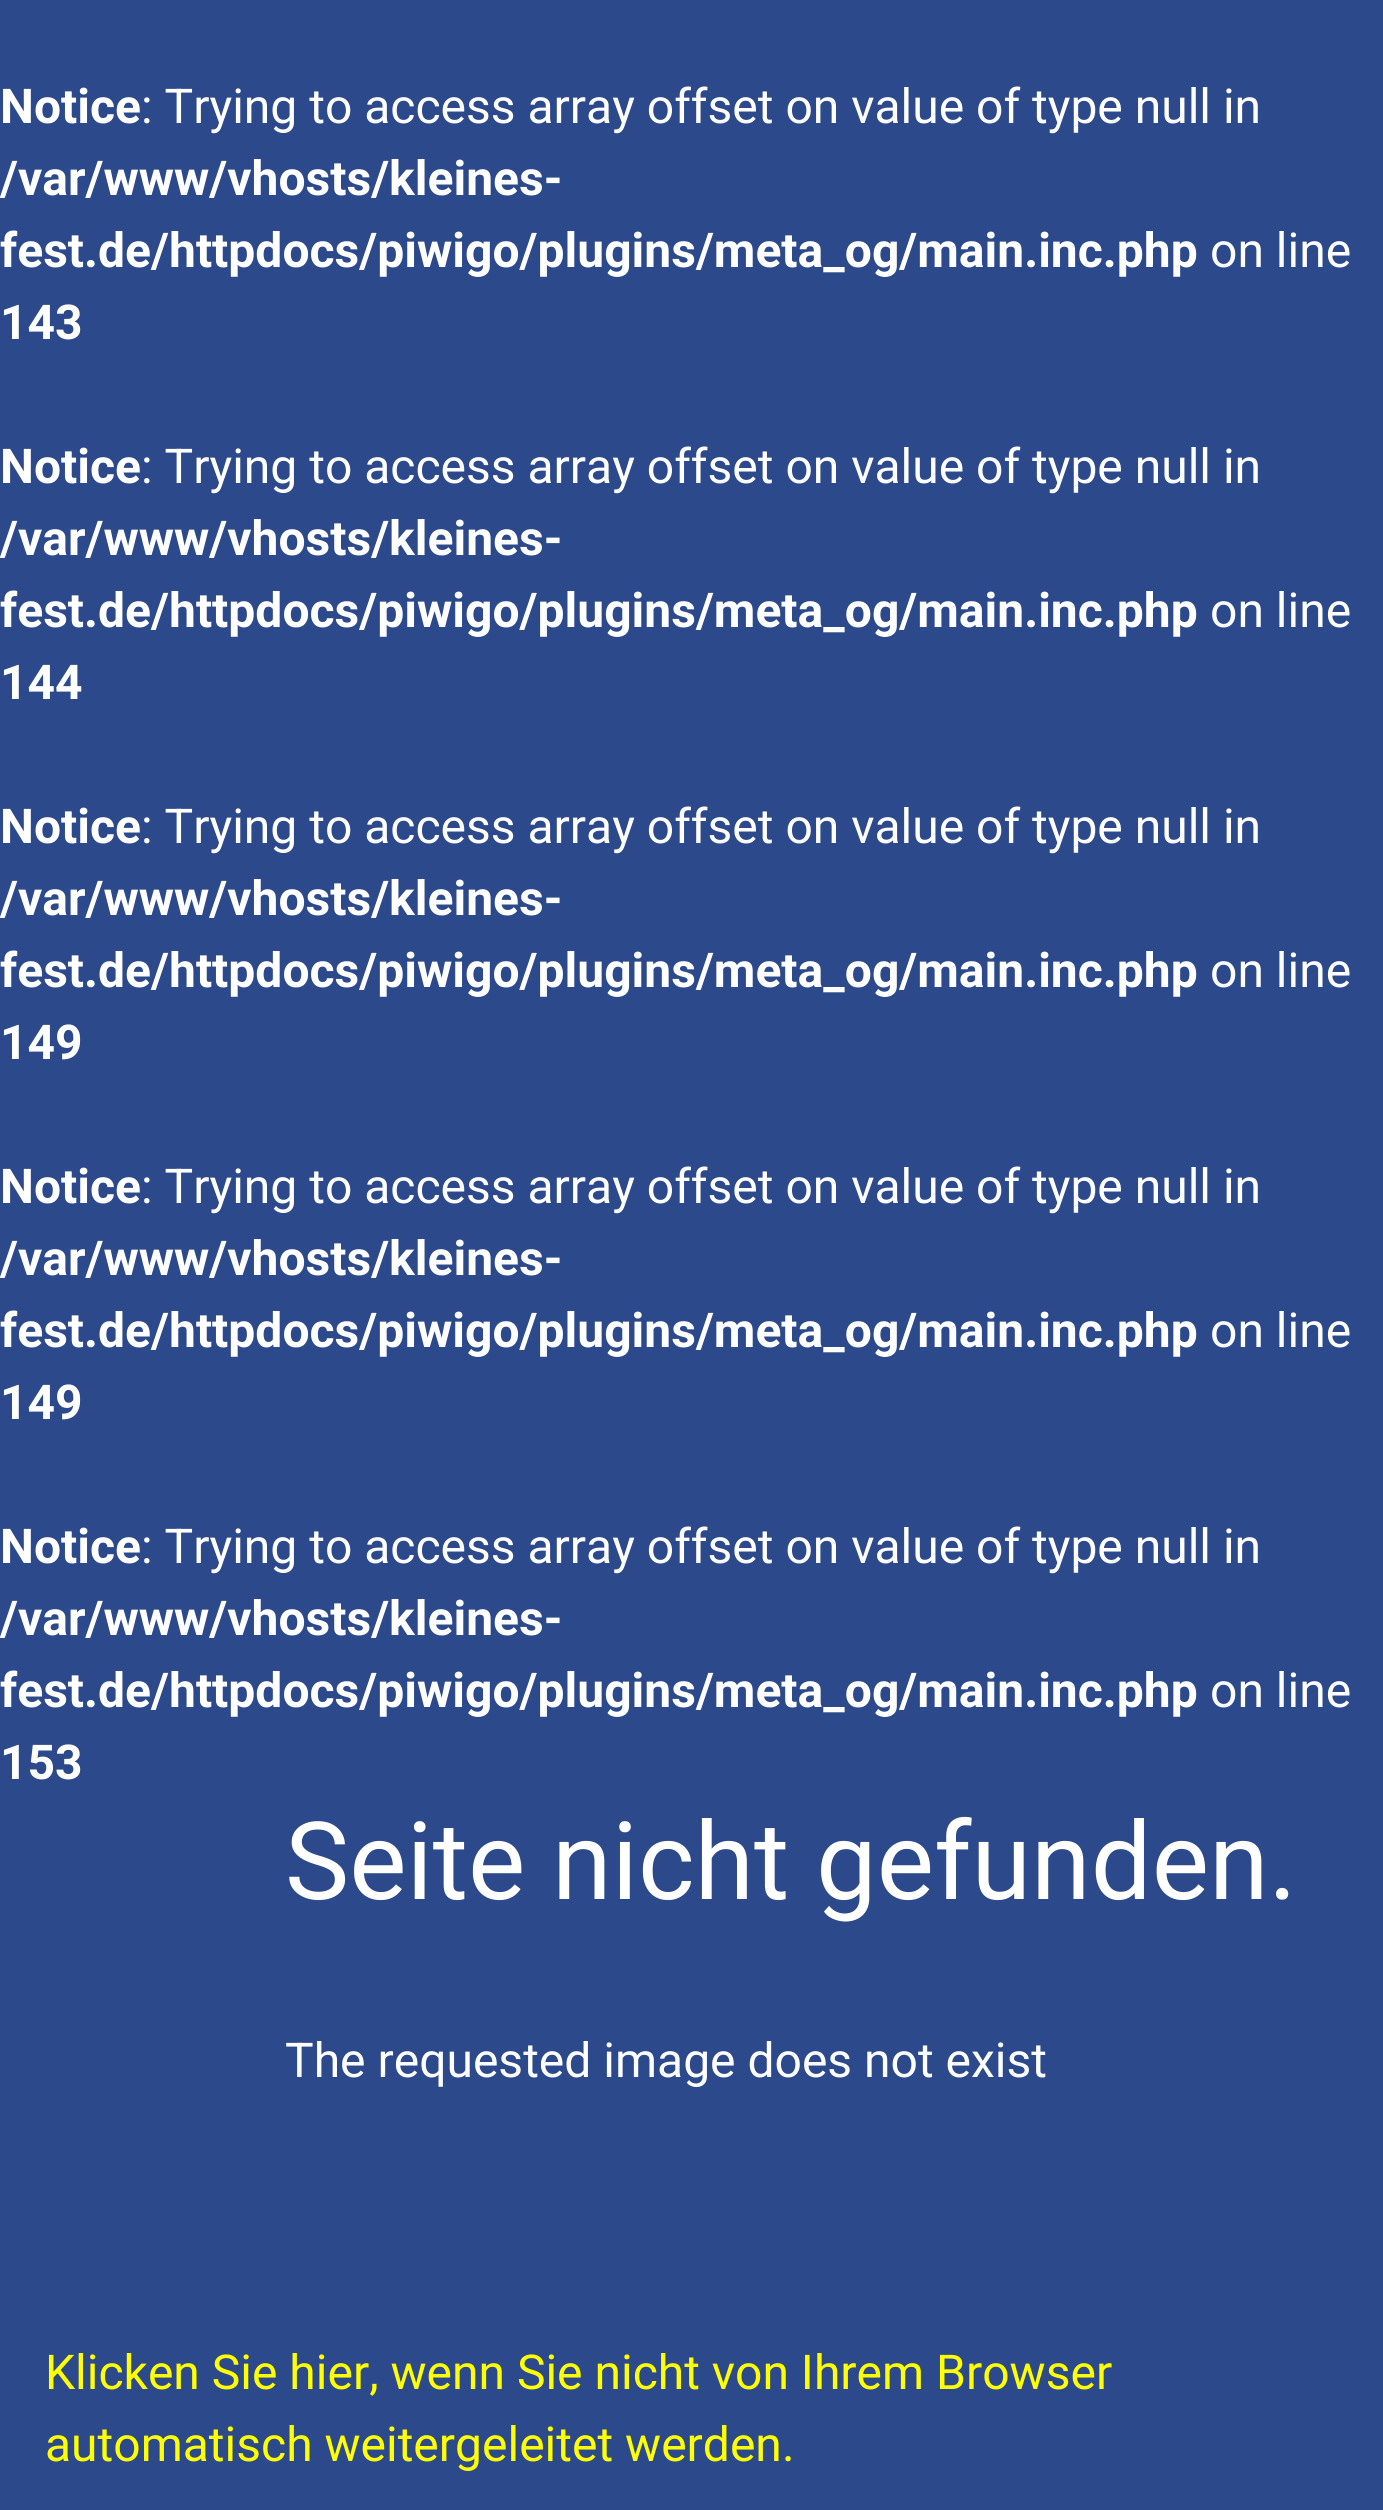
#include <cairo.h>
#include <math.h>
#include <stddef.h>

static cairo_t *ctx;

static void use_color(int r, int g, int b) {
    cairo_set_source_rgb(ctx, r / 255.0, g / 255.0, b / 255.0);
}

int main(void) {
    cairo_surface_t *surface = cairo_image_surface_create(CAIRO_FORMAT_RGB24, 1383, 2510);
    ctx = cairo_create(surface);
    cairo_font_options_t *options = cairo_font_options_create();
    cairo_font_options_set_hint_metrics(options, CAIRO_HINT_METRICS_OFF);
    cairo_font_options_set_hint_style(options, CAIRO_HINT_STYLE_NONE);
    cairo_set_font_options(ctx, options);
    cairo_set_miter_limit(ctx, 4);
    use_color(44, 73, 139);
    cairo_paint(ctx);
    cairo_select_font_face(ctx, "Roboto", CAIRO_FONT_SLANT_NORMAL, CAIRO_FONT_WEIGHT_BOLD);
    cairo_set_font_size(ctx, 48);
    use_color(255, 255, 255);
    cairo_move_to(ctx, 0, 123);
    cairo_show_text(ctx, "Notice");
    cairo_select_font_face(ctx, "Roboto", CAIRO_FONT_SLANT_NORMAL, CAIRO_FONT_WEIGHT_NORMAL);
    cairo_move_to(ctx, 141, 123);
    cairo_show_text(ctx, ": Trying to access array offset on value of type null in");
    cairo_select_font_face(ctx, "Roboto", CAIRO_FONT_SLANT_NORMAL, CAIRO_FONT_WEIGHT_BOLD);
    cairo_move_to(ctx, 0, 195);
    cairo_show_text(ctx, "/var/www/vhosts/kleines-");
    cairo_move_to(ctx, 0, 267);
    cairo_show_text(ctx, "fest.de/httpdocs/piwigo/plugins/meta_og/main.inc.php");
    cairo_select_font_face(ctx, "Roboto", CAIRO_FONT_SLANT_NORMAL, CAIRO_FONT_WEIGHT_NORMAL);
    cairo_move_to(ctx, 1210, 267);
    cairo_show_text(ctx, "on line");
    cairo_select_font_face(ctx, "Roboto", CAIRO_FONT_SLANT_NORMAL, CAIRO_FONT_WEIGHT_BOLD);
    cairo_move_to(ctx, 0, 339);
    cairo_show_text(ctx, "143");
    cairo_move_to(ctx, 0, 483);
    cairo_show_text(ctx, "Notice");
    cairo_select_font_face(ctx, "Roboto", CAIRO_FONT_SLANT_NORMAL, CAIRO_FONT_WEIGHT_NORMAL);
    cairo_move_to(ctx, 141, 483);
    cairo_show_text(ctx, ": Trying to access array offset on value of type null in");
    cairo_select_font_face(ctx, "Roboto", CAIRO_FONT_SLANT_NORMAL, CAIRO_FONT_WEIGHT_BOLD);
    cairo_move_to(ctx, 0, 555);
    cairo_show_text(ctx, "/var/www/vhosts/kleines-");
    cairo_move_to(ctx, 0, 627);
    cairo_show_text(ctx, "fest.de/httpdocs/piwigo/plugins/meta_og/main.inc.php");
    cairo_select_font_face(ctx, "Roboto", CAIRO_FONT_SLANT_NORMAL, CAIRO_FONT_WEIGHT_NORMAL);
    cairo_move_to(ctx, 1210, 627);
    cairo_show_text(ctx, "on line");
    cairo_select_font_face(ctx, "Roboto", CAIRO_FONT_SLANT_NORMAL, CAIRO_FONT_WEIGHT_BOLD);
    cairo_move_to(ctx, 0, 699);
    cairo_show_text(ctx, "144");
    cairo_move_to(ctx, 0, 843);
    cairo_show_text(ctx, "Notice");
    cairo_select_font_face(ctx, "Roboto", CAIRO_FONT_SLANT_NORMAL, CAIRO_FONT_WEIGHT_NORMAL);
    cairo_move_to(ctx, 141, 843);
    cairo_show_text(ctx, ": Trying to access array offset on value of type null in");
    cairo_select_font_face(ctx, "Roboto", CAIRO_FONT_SLANT_NORMAL, CAIRO_FONT_WEIGHT_BOLD);
    cairo_move_to(ctx, 0, 915);
    cairo_show_text(ctx, "/var/www/vhosts/kleines-");
    cairo_move_to(ctx, 0, 987);
    cairo_show_text(ctx, "fest.de/httpdocs/piwigo/plugins/meta_og/main.inc.php");
    cairo_select_font_face(ctx, "Roboto", CAIRO_FONT_SLANT_NORMAL, CAIRO_FONT_WEIGHT_NORMAL);
    cairo_move_to(ctx, 1210, 987);
    cairo_show_text(ctx, "on line");
    cairo_select_font_face(ctx, "Roboto", CAIRO_FONT_SLANT_NORMAL, CAIRO_FONT_WEIGHT_BOLD);
    cairo_move_to(ctx, 0, 1059);
    cairo_show_text(ctx, "149");
    cairo_move_to(ctx, 0, 1203);
    cairo_show_text(ctx, "Notice");
    cairo_select_font_face(ctx, "Roboto", CAIRO_FONT_SLANT_NORMAL, CAIRO_FONT_WEIGHT_NORMAL);
    cairo_move_to(ctx, 141, 1203);
    cairo_show_text(ctx, ": Trying to access array offset on value of type null in");
    cairo_select_font_face(ctx, "Roboto", CAIRO_FONT_SLANT_NORMAL, CAIRO_FONT_WEIGHT_BOLD);
    cairo_move_to(ctx, 0, 1275);
    cairo_show_text(ctx, "/var/www/vhosts/kleines-");
    cairo_move_to(ctx, 0, 1347);
    cairo_show_text(ctx, "fest.de/httpdocs/piwigo/plugins/meta_og/main.inc.php");
    cairo_select_font_face(ctx, "Roboto", CAIRO_FONT_SLANT_NORMAL, CAIRO_FONT_WEIGHT_NORMAL);
    cairo_move_to(ctx, 1210, 1347);
    cairo_show_text(ctx, "on line");
    cairo_select_font_face(ctx, "Roboto", CAIRO_FONT_SLANT_NORMAL, CAIRO_FONT_WEIGHT_BOLD);
    cairo_move_to(ctx, 0, 1419);
    cairo_show_text(ctx, "149");
    cairo_move_to(ctx, 0, 1563);
    cairo_show_text(ctx, "Notice");
    cairo_select_font_face(ctx, "Roboto", CAIRO_FONT_SLANT_NORMAL, CAIRO_FONT_WEIGHT_NORMAL);
    cairo_move_to(ctx, 141, 1563);
    cairo_show_text(ctx, ": Trying to access array offset on value of type null in");
    cairo_select_font_face(ctx, "Roboto", CAIRO_FONT_SLANT_NORMAL, CAIRO_FONT_WEIGHT_BOLD);
    cairo_move_to(ctx, 0, 1635);
    cairo_show_text(ctx, "/var/www/vhosts/kleines-");
    cairo_move_to(ctx, 0, 1707);
    cairo_show_text(ctx, "fest.de/httpdocs/piwigo/plugins/meta_og/main.inc.php");
    cairo_select_font_face(ctx, "Roboto", CAIRO_FONT_SLANT_NORMAL, CAIRO_FONT_WEIGHT_NORMAL);
    cairo_move_to(ctx, 1210, 1707);
    cairo_show_text(ctx, "on line");
    cairo_select_font_face(ctx, "Roboto", CAIRO_FONT_SLANT_NORMAL, CAIRO_FONT_WEIGHT_BOLD);
    cairo_move_to(ctx, 0, 1779);
    cairo_show_text(ctx, "153");
    cairo_select_font_face(ctx, "Roboto", CAIRO_FONT_SLANT_NORMAL, CAIRO_FONT_WEIGHT_NORMAL);
    cairo_set_font_size(ctx, 108);
    cairo_move_to(ctx, 285, 1899);
    cairo_show_text(ctx, "Seite nicht gefunden.");
    cairo_set_font_size(ctx, 48);
    cairo_move_to(ctx, 285, 2077);
    cairo_show_text(ctx, "The requested image does not exist");
    use_color(255, 255, 0);
    cairo_move_to(ctx, 45, 2389);
    cairo_show_text(ctx, "Klicken Sie hier, wenn Sie nicht von Ihrem Browser");
    cairo_move_to(ctx, 45, 2461);
    cairo_show_text(ctx, "automatisch weitergeleitet werden.");
    cairo_surface_write_to_png(surface, "result.png");
    cairo_font_options_destroy(options);
    cairo_destroy(ctx);
    cairo_surface_destroy(surface);
    return 0;
}
